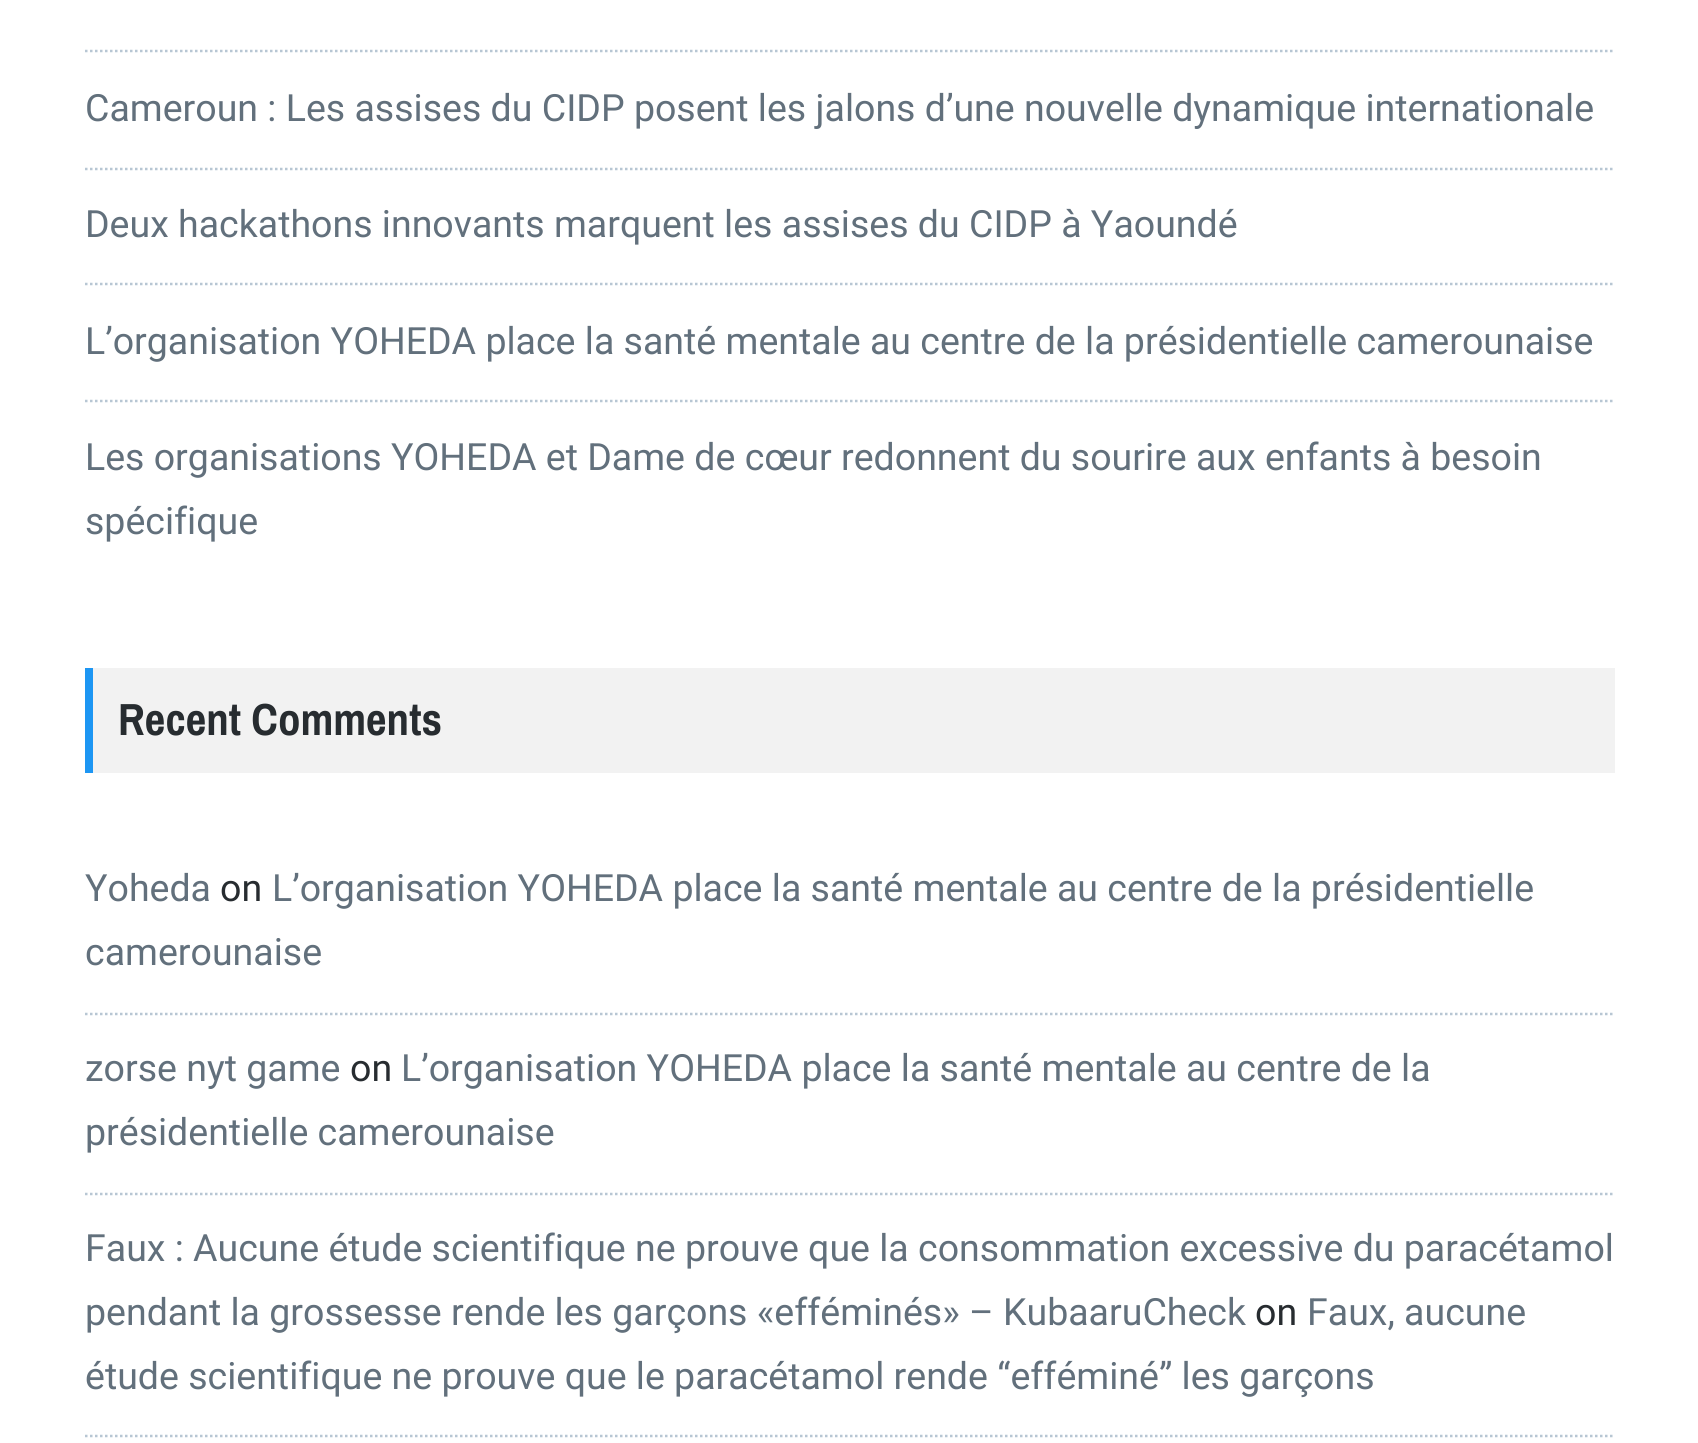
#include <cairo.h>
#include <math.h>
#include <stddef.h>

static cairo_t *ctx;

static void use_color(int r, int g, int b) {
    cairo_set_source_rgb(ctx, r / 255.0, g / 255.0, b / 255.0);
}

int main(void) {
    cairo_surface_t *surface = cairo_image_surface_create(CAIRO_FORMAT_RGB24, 1698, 1443);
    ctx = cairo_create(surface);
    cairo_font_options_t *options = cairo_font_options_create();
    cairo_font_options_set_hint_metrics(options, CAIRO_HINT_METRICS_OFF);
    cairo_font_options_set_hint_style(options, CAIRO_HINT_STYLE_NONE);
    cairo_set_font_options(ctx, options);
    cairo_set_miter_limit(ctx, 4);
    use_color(255, 255, 255);
    cairo_paint(ctx);
    cairo_new_path(ctx);
    cairo_move_to(ctx, 85, 51);
    cairo_line_to(ctx, 1615, 51);
    use_color(183, 198, 211);
    cairo_set_line_width(ctx, 2.5);
    cairo_set_dash(ctx, (double[]){2.5, 2.5}, 2, 0);
    cairo_stroke(ctx);
    cairo_new_path(ctx);
    cairo_move_to(ctx, 85, 169);
    cairo_line_to(ctx, 1615, 169);
    cairo_stroke(ctx);
    cairo_select_font_face(ctx, "Roboto", CAIRO_FONT_SLANT_NORMAL, CAIRO_FONT_WEIGHT_NORMAL);
    cairo_set_font_size(ctx, 37.5);
    use_color(98, 112, 124);
    cairo_move_to(ctx, 85, 121);
    cairo_show_text(ctx, "Cameroun : Les assises du CIDP posent les jalons d’une nouvelle dynamique internationale");
    cairo_new_path(ctx);
    cairo_move_to(ctx, 85, 284);
    cairo_line_to(ctx, 1615, 284);
    use_color(183, 198, 211);
    cairo_stroke(ctx);
    use_color(98, 112, 124);
    cairo_move_to(ctx, 85, 237);
    cairo_show_text(ctx, "Deux hackathons innovants marquent les assises du CIDP à Yaoundé");
    cairo_new_path(ctx);
    cairo_move_to(ctx, 85, 401);
    cairo_line_to(ctx, 1615, 401);
    use_color(183, 198, 211);
    cairo_stroke(ctx);
    use_color(98, 112, 124);
    cairo_move_to(ctx, 85, 354);
    cairo_show_text(ctx, "L’organisation YOHEDA place la santé mentale au centre de la présidentielle camerounaise");
    cairo_move_to(ctx, 85, 470);
    cairo_show_text(ctx, "Les organisations YOHEDA et Dame de cœur redonnent du sourire aux enfants à besoin");
    cairo_move_to(ctx, 85, 534);
    cairo_show_text(ctx, "spécifique");
    use_color(242, 242, 242);
    cairo_rectangle(ctx, 93, 668, 1522, 105);
    cairo_fill(ctx);
    use_color(29, 150, 243);
    cairo_rectangle(ctx, 85, 668, 8, 105);
    cairo_fill(ctx);
    cairo_select_font_face(ctx, "Archivo Narrow", CAIRO_FONT_SLANT_NORMAL, CAIRO_FONT_WEIGHT_BOLD);
    cairo_set_font_size(ctx, 45);
    use_color(39, 44, 48);
    cairo_move_to(ctx, 118, 735);
    cairo_show_text(ctx, "Recent Comments");
    cairo_new_path(ctx);
    cairo_move_to(ctx, 85, 1014);
    cairo_line_to(ctx, 1615, 1014);
    use_color(183, 198, 211);
    cairo_stroke(ctx);
    cairo_select_font_face(ctx, "Roboto", CAIRO_FONT_SLANT_NORMAL, CAIRO_FONT_WEIGHT_NORMAL);
    cairo_set_font_size(ctx, 37.5);
    use_color(98, 112, 124);
    cairo_move_to(ctx, 85, 901);
    cairo_show_text(ctx, "Yoheda");
    use_color(39, 44, 48);
    cairo_move_to(ctx, 220, 901);
    cairo_show_text(ctx, "on");
    use_color(98, 112, 124);
    cairo_move_to(ctx, 272, 901);
    cairo_show_text(ctx, "L’organisation YOHEDA place la santé mentale au centre de la présidentielle");
    cairo_move_to(ctx, 85, 965);
    cairo_show_text(ctx, "camerounaise");
    cairo_new_path(ctx);
    cairo_move_to(ctx, 85, 1194);
    cairo_line_to(ctx, 1615, 1194);
    use_color(183, 198, 211);
    cairo_stroke(ctx);
    use_color(98, 112, 124);
    cairo_move_to(ctx, 85, 1081);
    cairo_show_text(ctx, "zorse nyt game");
    use_color(39, 44, 48);
    cairo_move_to(ctx, 350, 1081);
    cairo_show_text(ctx, "on");
    use_color(98, 112, 124);
    cairo_move_to(ctx, 401, 1081);
    cairo_show_text(ctx, "L’organisation YOHEDA place la santé mentale au centre de la");
    cairo_move_to(ctx, 85, 1145);
    cairo_show_text(ctx, "présidentielle camerounaise");
    cairo_new_path(ctx);
    cairo_move_to(ctx, 85, 1436);
    cairo_line_to(ctx, 1615, 1436);
    use_color(183, 198, 211);
    cairo_stroke(ctx);
    use_color(98, 112, 124);
    cairo_move_to(ctx, 85, 1261);
    cairo_show_text(ctx, "Faux : Aucune étude scientifique ne prouve que la consommation excessive du paracétamol");
    cairo_move_to(ctx, 85, 1325);
    cairo_show_text(ctx, "pendant la grossesse rende les garçons «efféminés» – KubaaruCheck");
    use_color(39, 44, 48);
    cairo_move_to(ctx, 1255, 1325);
    cairo_show_text(ctx, "on");
    use_color(98, 112, 124);
    cairo_move_to(ctx, 1307, 1325);
    cairo_show_text(ctx, "Faux, aucune");
    cairo_move_to(ctx, 85, 1389);
    cairo_show_text(ctx, "étude scientifique ne prouve que le paracétamol rende “efféminé” les garçons");
    cairo_surface_write_to_png(surface, "result.png");
    cairo_font_options_destroy(options);
    cairo_destroy(ctx);
    cairo_surface_destroy(surface);
    return 0;
}
